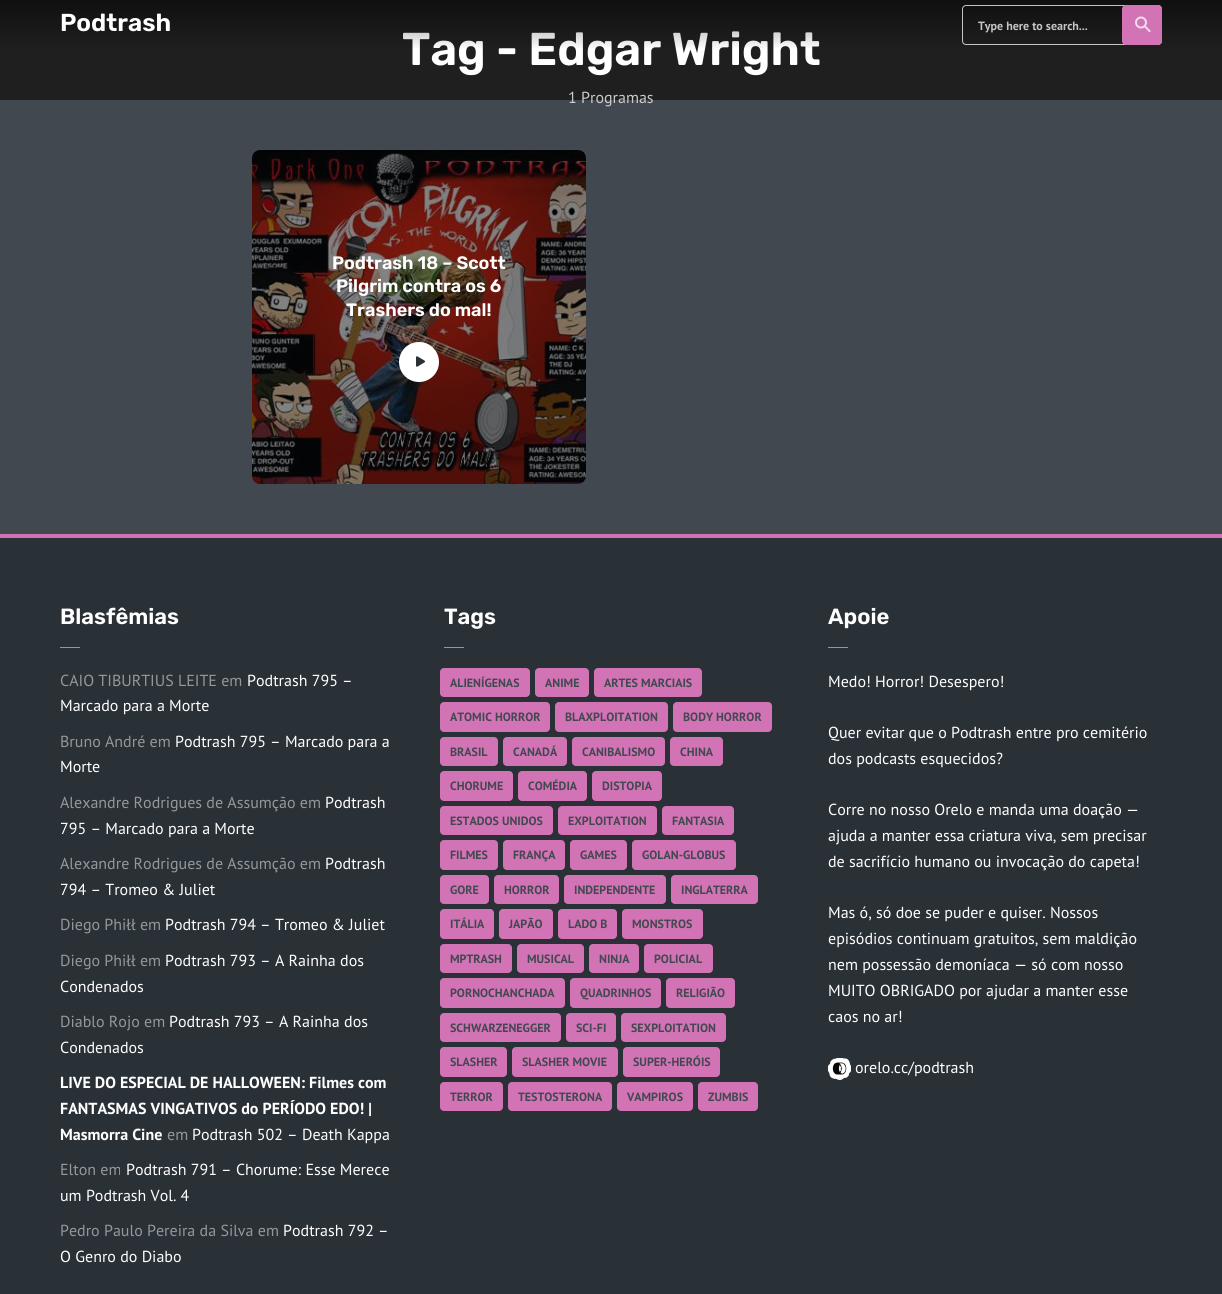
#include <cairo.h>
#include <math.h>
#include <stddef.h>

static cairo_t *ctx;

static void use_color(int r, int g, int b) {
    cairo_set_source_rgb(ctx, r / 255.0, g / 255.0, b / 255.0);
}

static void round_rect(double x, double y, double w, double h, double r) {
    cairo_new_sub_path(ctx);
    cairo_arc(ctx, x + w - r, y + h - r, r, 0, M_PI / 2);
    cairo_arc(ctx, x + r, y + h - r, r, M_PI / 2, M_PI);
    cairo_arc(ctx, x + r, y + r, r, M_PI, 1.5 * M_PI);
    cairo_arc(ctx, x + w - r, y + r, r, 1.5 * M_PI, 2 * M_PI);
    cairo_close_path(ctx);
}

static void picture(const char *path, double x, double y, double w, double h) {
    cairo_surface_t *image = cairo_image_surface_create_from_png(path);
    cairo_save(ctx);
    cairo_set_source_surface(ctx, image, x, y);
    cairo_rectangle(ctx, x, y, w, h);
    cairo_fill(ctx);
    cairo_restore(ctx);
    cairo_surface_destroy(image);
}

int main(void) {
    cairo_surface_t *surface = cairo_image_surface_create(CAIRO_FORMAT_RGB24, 1222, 1294);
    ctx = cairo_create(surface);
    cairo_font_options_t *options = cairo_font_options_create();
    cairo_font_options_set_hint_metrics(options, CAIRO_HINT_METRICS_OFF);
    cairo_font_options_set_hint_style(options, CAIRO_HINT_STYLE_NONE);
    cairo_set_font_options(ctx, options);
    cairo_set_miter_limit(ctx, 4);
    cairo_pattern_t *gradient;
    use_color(66, 72, 80);
    cairo_paint(ctx);
    use_color(31, 31, 31);
    cairo_rectangle(ctx, 0, 0, 1222, 100);
    cairo_fill(ctx);
    cairo_select_font_face(ctx, "Rubik SemiBold", CAIRO_FONT_SLANT_NORMAL, CAIRO_FONT_WEIGHT_NORMAL);
    cairo_set_font_size(ctx, 46);
    use_color(255, 255, 255);
    cairo_move_to(ctx, 402, 65);
    cairo_show_text(ctx, "Tag - Edgar Wright");
    gradient = cairo_pattern_create_linear(611, 0, 611, 50);
    cairo_pattern_add_color_stop_rgba(gradient, 0, 0, 0, 0, 0.5);
    cairo_pattern_add_color_stop_rgba(gradient, 1, 0, 0, 0, 0);
    cairo_set_source(ctx, gradient);
    cairo_pattern_destroy(gradient);
    cairo_rectangle(ctx, 0, 0, 1222, 48);
    cairo_fill(ctx);
    cairo_set_font_size(ctx, 24.5);
    use_color(255, 255, 255);
    cairo_move_to(ctx, 60, 31);
    cairo_show_text(ctx, "Podtrash");
    round_rect(962.5, 5.5, 199, 39, 3.5);
    cairo_set_source_rgba(ctx, 1, 1, 1, 0.75);
    cairo_set_line_width(ctx, 1);
    cairo_stroke(ctx);
    cairo_select_font_face(ctx, "PT Sans", CAIRO_FONT_SLANT_NORMAL, CAIRO_FONT_WEIGHT_BOLD);
    cairo_set_font_size(ctx, 12);
    use_color(197, 197, 197);
    cairo_move_to(ctx, 978, 30);
    cairo_show_text(ctx, "Type here to search...");
    use_color(210, 115, 181);
    round_rect(1122, 5, 40, 40, 4);
    cairo_fill(ctx);
    picture("img1.png", 1135, 16, 16, 17);
    cairo_select_font_face(ctx, "PT Sans", CAIRO_FONT_SLANT_NORMAL, CAIRO_FONT_WEIGHT_NORMAL);
    cairo_set_font_size(ctx, 16);
    use_color(202, 203, 204);
    cairo_move_to(ctx, 568, 103);
    cairo_show_text(ctx, "1");
    cairo_move_to(ctx, 581, 103);
    cairo_show_text(ctx, "Programas");
    picture("img2.png", 252, 150, 334, 334);
    cairo_set_source_rgba(ctx, 0.031, 0.039, 0.043, 0.5);
    round_rect(252, 150, 334, 334, 8);
    cairo_fill(ctx);
    cairo_select_font_face(ctx, "Rubik SemiBold", CAIRO_FONT_SLANT_NORMAL, CAIRO_FONT_WEIGHT_NORMAL);
    cairo_set_font_size(ctx, 18);
    use_color(255, 255, 255);
    cairo_move_to(ctx, 332, 269);
    cairo_show_text(ctx, "Podtrash 18 – Scott");
    cairo_move_to(ctx, 336, 292);
    cairo_show_text(ctx, "Pilgrim contra os 6");
    cairo_move_to(ctx, 346, 316);
    cairo_show_text(ctx, "Trashers do mal!");
    cairo_new_path(ctx);
    cairo_arc(ctx, 419, 362, 20, 0, 2 * M_PI);
    cairo_fill(ctx);
    picture("img3.png", 416, 356, 9, 11);
    use_color(41, 48, 54);
    cairo_rectangle(ctx, 0, 538, 1222, 756);
    cairo_fill(ctx);
    use_color(210, 115, 181);
    cairo_rectangle(ctx, 0, 534, 1222, 4);
    cairo_fill(ctx);
    cairo_set_font_size(ctx, 22);
    use_color(255, 255, 255);
    cairo_move_to(ctx, 60, 624);
    cairo_show_text(ctx, "Blasfêmias");
    use_color(210, 115, 181);
    cairo_rectangle(ctx, 60, 647, 20, 1);
    cairo_fill(ctx);
    cairo_select_font_face(ctx, "PT Sans", CAIRO_FONT_SLANT_NORMAL, CAIRO_FONT_WEIGHT_NORMAL);
    cairo_set_font_size(ctx, 16);
    use_color(148, 152, 155);
    cairo_move_to(ctx, 60, 686);
    cairo_show_text(ctx, "CAIO TIBURTIUS LEITE em");
    use_color(255, 255, 255);
    cairo_move_to(ctx, 247, 686);
    cairo_show_text(ctx, "Podtrash 795 –");
    cairo_move_to(ctx, 60, 711);
    cairo_show_text(ctx, "Marcado para a Morte");
    use_color(148, 152, 155);
    cairo_move_to(ctx, 60, 747);
    cairo_show_text(ctx, "Bruno André em");
    use_color(255, 255, 255);
    cairo_move_to(ctx, 175, 747);
    cairo_show_text(ctx, "Podtrash 795 – Marcado para a");
    cairo_move_to(ctx, 60, 772);
    cairo_show_text(ctx, "Morte");
    use_color(148, 152, 155);
    cairo_move_to(ctx, 60, 808);
    cairo_show_text(ctx, "Alexandre Rodrigues de Assumção em");
    use_color(255, 255, 255);
    cairo_move_to(ctx, 325, 808);
    cairo_show_text(ctx, "Podtrash");
    cairo_move_to(ctx, 60, 834);
    cairo_show_text(ctx, "795 – Marcado para a Morte");
    use_color(148, 152, 155);
    cairo_move_to(ctx, 60, 869);
    cairo_show_text(ctx, "Alexandre Rodrigues de Assumção em");
    use_color(255, 255, 255);
    cairo_move_to(ctx, 325, 869);
    cairo_show_text(ctx, "Podtrash");
    cairo_move_to(ctx, 60, 895);
    cairo_show_text(ctx, "794 – Tromeo & Juliet");
    use_color(148, 152, 155);
    cairo_move_to(ctx, 60, 930);
    cairo_show_text(ctx, "Diego Phiłł em");
    use_color(255, 255, 255);
    cairo_move_to(ctx, 165, 930);
    cairo_show_text(ctx, "Podtrash 794 – Tromeo & Juliet");
    use_color(148, 152, 155);
    cairo_move_to(ctx, 60, 966);
    cairo_show_text(ctx, "Diego Phiłł em");
    use_color(255, 255, 255);
    cairo_move_to(ctx, 165, 966);
    cairo_show_text(ctx, "Podtrash 793 – A Rainha dos");
    cairo_move_to(ctx, 60, 992);
    cairo_show_text(ctx, "Condenados");
    use_color(148, 152, 155);
    cairo_move_to(ctx, 60, 1027);
    cairo_show_text(ctx, "Diablo Rojo em");
    use_color(255, 255, 255);
    cairo_move_to(ctx, 169, 1027);
    cairo_show_text(ctx, "Podtrash 793 – A Rainha dos");
    cairo_move_to(ctx, 60, 1053);
    cairo_show_text(ctx, "Condenados");
    cairo_select_font_face(ctx, "PT Sans", CAIRO_FONT_SLANT_NORMAL, CAIRO_FONT_WEIGHT_BOLD);
    cairo_move_to(ctx, 60, 1088);
    cairo_show_text(ctx, "LIVE DO ESPECIAL DE HALLOWEEN: Filmes com");
    cairo_move_to(ctx, 60, 1114);
    cairo_show_text(ctx, "FANTASMAS VINGATIVOS do PERÍODO EDO! |");
    cairo_move_to(ctx, 60, 1140);
    cairo_show_text(ctx, "Masmorra Cine");
    cairo_select_font_face(ctx, "PT Sans", CAIRO_FONT_SLANT_NORMAL, CAIRO_FONT_WEIGHT_NORMAL);
    use_color(148, 152, 155);
    cairo_move_to(ctx, 167, 1140);
    cairo_show_text(ctx, "em");
    use_color(255, 255, 255);
    cairo_move_to(ctx, 192, 1140);
    cairo_show_text(ctx, "Podtrash 502 – Death Kappa");
    use_color(148, 152, 155);
    cairo_move_to(ctx, 60, 1175);
    cairo_show_text(ctx, "Elton em");
    use_color(255, 255, 255);
    cairo_move_to(ctx, 126, 1175);
    cairo_show_text(ctx, "Podtrash 791 – Chorume: Esse Merece");
    cairo_move_to(ctx, 60, 1201);
    cairo_show_text(ctx, "um Podtrash Vol. 4");
    use_color(148, 152, 155);
    cairo_move_to(ctx, 60, 1236);
    cairo_show_text(ctx, "Pedro Paulo Pereira da Silva em");
    use_color(255, 255, 255);
    cairo_move_to(ctx, 283, 1236);
    cairo_show_text(ctx, "Podtrash 792 –");
    cairo_move_to(ctx, 60, 1262);
    cairo_show_text(ctx, "O Genro do Diabo");
    cairo_select_font_face(ctx, "Rubik SemiBold", CAIRO_FONT_SLANT_NORMAL, CAIRO_FONT_WEIGHT_NORMAL);
    cairo_set_font_size(ctx, 22);
    cairo_move_to(ctx, 444, 624);
    cairo_show_text(ctx, "Tags");
    use_color(210, 115, 181);
    cairo_rectangle(ctx, 444, 647, 20, 1);
    cairo_fill(ctx);
    round_rect(440, 668, 90, 29, 4);
    cairo_fill(ctx);
    cairo_select_font_face(ctx, "PT Sans", CAIRO_FONT_SLANT_NORMAL, CAIRO_FONT_WEIGHT_BOLD);
    cairo_set_font_size(ctx, 12);
    use_color(66, 72, 80);
    cairo_move_to(ctx, 450, 687);
    cairo_show_text(ctx, "ALIENÍGENAS");
    use_color(210, 115, 181);
    round_rect(535, 668, 54, 29, 4);
    cairo_fill(ctx);
    use_color(66, 72, 80);
    cairo_move_to(ctx, 545, 687);
    cairo_show_text(ctx, "ANIME");
    use_color(210, 115, 181);
    round_rect(594, 668, 108, 29, 4);
    cairo_fill(ctx);
    use_color(66, 72, 80);
    cairo_move_to(ctx, 604, 687);
    cairo_show_text(ctx, "ARTES MARCIAIS");
    use_color(210, 115, 181);
    round_rect(440, 702, 110, 30, 4);
    cairo_fill(ctx);
    use_color(66, 72, 80);
    cairo_move_to(ctx, 450, 721);
    cairo_show_text(ctx, "ATOMIC HORROR");
    use_color(210, 115, 181);
    round_rect(555, 702, 113, 30, 4);
    cairo_fill(ctx);
    use_color(66, 72, 80);
    cairo_move_to(ctx, 565, 721);
    cairo_show_text(ctx, "BLAXPLOITATION");
    use_color(210, 115, 181);
    round_rect(673, 702, 99, 30, 4);
    cairo_fill(ctx);
    use_color(66, 72, 80);
    cairo_move_to(ctx, 683, 721);
    cairo_show_text(ctx, "BODY HORROR");
    use_color(210, 115, 181);
    round_rect(440, 737, 58, 29, 4);
    cairo_fill(ctx);
    use_color(66, 72, 80);
    cairo_move_to(ctx, 450, 756);
    cairo_show_text(ctx, "BRASIL");
    use_color(210, 115, 181);
    round_rect(503, 737, 64, 29, 4);
    cairo_fill(ctx);
    use_color(66, 72, 80);
    cairo_move_to(ctx, 513, 756);
    cairo_show_text(ctx, "CANADÁ");
    use_color(210, 115, 181);
    round_rect(572, 737, 93, 29, 4);
    cairo_fill(ctx);
    use_color(66, 72, 80);
    cairo_move_to(ctx, 582, 756);
    cairo_show_text(ctx, "CANIBALISMO");
    use_color(210, 115, 181);
    round_rect(670, 737, 53, 29, 4);
    cairo_fill(ctx);
    use_color(66, 72, 80);
    cairo_move_to(ctx, 680, 756);
    cairo_show_text(ctx, "CHINA");
    use_color(210, 115, 181);
    round_rect(440, 771, 73, 30, 4);
    cairo_fill(ctx);
    use_color(66, 72, 80);
    cairo_move_to(ctx, 450, 790);
    cairo_show_text(ctx, "CHORUME");
    use_color(210, 115, 181);
    round_rect(518, 771, 69, 30, 4);
    cairo_fill(ctx);
    use_color(66, 72, 80);
    cairo_move_to(ctx, 528, 790);
    cairo_show_text(ctx, "COMÉDIA");
    use_color(210, 115, 181);
    round_rect(592, 771, 70, 30, 4);
    cairo_fill(ctx);
    use_color(66, 72, 80);
    cairo_move_to(ctx, 602, 790);
    cairo_show_text(ctx, "DISTOPIA");
    use_color(210, 115, 181);
    round_rect(440, 806, 113, 29, 4);
    cairo_fill(ctx);
    use_color(66, 72, 80);
    cairo_move_to(ctx, 450, 825);
    cairo_show_text(ctx, "ESTADOS UNIDOS");
    use_color(210, 115, 181);
    round_rect(558, 806, 99, 29, 4);
    cairo_fill(ctx);
    use_color(66, 72, 80);
    cairo_move_to(ctx, 568, 825);
    cairo_show_text(ctx, "EXPLOITATION");
    use_color(210, 115, 181);
    round_rect(662, 806, 72, 29, 4);
    cairo_fill(ctx);
    use_color(66, 72, 80);
    cairo_move_to(ctx, 672, 825);
    cairo_show_text(ctx, "FANTASIA");
    use_color(210, 115, 181);
    round_rect(440, 840, 58, 30, 4);
    cairo_fill(ctx);
    use_color(66, 72, 80);
    cairo_move_to(ctx, 450, 859);
    cairo_show_text(ctx, "FILMES");
    use_color(210, 115, 181);
    round_rect(503, 840, 62, 30, 4);
    cairo_fill(ctx);
    use_color(66, 72, 80);
    cairo_move_to(ctx, 513, 859);
    cairo_show_text(ctx, "FRANÇA");
    use_color(210, 115, 181);
    round_rect(570, 840, 57, 30, 4);
    cairo_fill(ctx);
    use_color(66, 72, 80);
    cairo_move_to(ctx, 580, 859);
    cairo_show_text(ctx, "GAMES");
    use_color(210, 115, 181);
    round_rect(632, 840, 104, 30, 4);
    cairo_fill(ctx);
    use_color(66, 72, 80);
    cairo_move_to(ctx, 642, 859);
    cairo_show_text(ctx, "GOLAN-GLOBUS");
    use_color(210, 115, 181);
    round_rect(440, 875, 49, 29, 4);
    cairo_fill(ctx);
    use_color(66, 72, 80);
    cairo_move_to(ctx, 450, 894);
    cairo_show_text(ctx, "GORE");
    use_color(210, 115, 181);
    round_rect(494, 875, 65, 29, 4);
    cairo_fill(ctx);
    use_color(66, 72, 80);
    cairo_move_to(ctx, 504, 894);
    cairo_show_text(ctx, "HORROR");
    use_color(210, 115, 181);
    round_rect(564, 875, 102, 29, 4);
    cairo_fill(ctx);
    use_color(66, 72, 80);
    cairo_move_to(ctx, 574, 894);
    cairo_show_text(ctx, "INDEPENDENTE");
    use_color(210, 115, 181);
    round_rect(671, 875, 87, 29, 4);
    cairo_fill(ctx);
    use_color(66, 72, 80);
    cairo_move_to(ctx, 681, 894);
    cairo_show_text(ctx, "INGLATERRA");
    use_color(210, 115, 181);
    round_rect(440, 909, 54, 30, 4);
    cairo_fill(ctx);
    use_color(66, 72, 80);
    cairo_move_to(ctx, 450, 928);
    cairo_show_text(ctx, "ITÁLIA");
    use_color(210, 115, 181);
    round_rect(499, 909, 54, 30, 4);
    cairo_fill(ctx);
    use_color(66, 72, 80);
    cairo_move_to(ctx, 509, 928);
    cairo_show_text(ctx, "JAPÃO");
    use_color(210, 115, 181);
    round_rect(558, 909, 59, 30, 4);
    cairo_fill(ctx);
    use_color(66, 72, 80);
    cairo_move_to(ctx, 568, 928);
    cairo_show_text(ctx, "LADO B");
    use_color(210, 115, 181);
    round_rect(622, 909, 81, 30, 4);
    cairo_fill(ctx);
    use_color(66, 72, 80);
    cairo_move_to(ctx, 632, 928);
    cairo_show_text(ctx, "MONSTROS");
    use_color(210, 115, 181);
    round_rect(440, 944, 72, 29, 4);
    cairo_fill(ctx);
    use_color(66, 72, 80);
    cairo_move_to(ctx, 450, 963);
    cairo_show_text(ctx, "MPTRASH");
    use_color(210, 115, 181);
    round_rect(517, 944, 67, 29, 4);
    cairo_fill(ctx);
    use_color(66, 72, 80);
    cairo_move_to(ctx, 527, 963);
    cairo_show_text(ctx, "MUSICAL");
    use_color(210, 115, 181);
    round_rect(589, 944, 50, 29, 4);
    cairo_fill(ctx);
    use_color(66, 72, 80);
    cairo_move_to(ctx, 599, 963);
    cairo_show_text(ctx, "NINJA");
    use_color(210, 115, 181);
    round_rect(644, 944, 69, 29, 4);
    cairo_fill(ctx);
    use_color(66, 72, 80);
    cairo_move_to(ctx, 654, 963);
    cairo_show_text(ctx, "POLICIAL");
    use_color(210, 115, 181);
    round_rect(440, 978, 125, 30, 4);
    cairo_fill(ctx);
    use_color(66, 72, 80);
    cairo_move_to(ctx, 450, 997);
    cairo_show_text(ctx, "PORNOCHANCHADA");
    use_color(210, 115, 181);
    round_rect(570, 978, 91, 30, 4);
    cairo_fill(ctx);
    use_color(66, 72, 80);
    cairo_move_to(ctx, 580, 997);
    cairo_show_text(ctx, "QUADRINHOS");
    use_color(210, 115, 181);
    round_rect(666, 978, 69, 30, 4);
    cairo_fill(ctx);
    use_color(66, 72, 80);
    cairo_move_to(ctx, 676, 997);
    cairo_show_text(ctx, "RELIGIÃO");
    use_color(210, 115, 181);
    round_rect(440, 1013, 121, 29, 4);
    cairo_fill(ctx);
    use_color(66, 72, 80);
    cairo_move_to(ctx, 450, 1032);
    cairo_show_text(ctx, "SCHWARZENEGGER");
    use_color(210, 115, 181);
    round_rect(566, 1013, 50, 29, 4);
    cairo_fill(ctx);
    use_color(66, 72, 80);
    cairo_move_to(ctx, 576, 1032);
    cairo_show_text(ctx, "SCI-FI");
    use_color(210, 115, 181);
    round_rect(621, 1013, 105, 29, 4);
    cairo_fill(ctx);
    use_color(66, 72, 80);
    cairo_move_to(ctx, 631, 1032);
    cairo_show_text(ctx, "SEXPLOITATION");
    use_color(210, 115, 181);
    round_rect(440, 1047, 67, 30, 4);
    cairo_fill(ctx);
    use_color(66, 72, 80);
    cairo_move_to(ctx, 450, 1066);
    cairo_show_text(ctx, "SLASHER");
    use_color(210, 115, 181);
    round_rect(512, 1047, 106, 30, 4);
    cairo_fill(ctx);
    use_color(66, 72, 80);
    cairo_move_to(ctx, 522, 1066);
    cairo_show_text(ctx, "SLASHER MOVIE");
    use_color(210, 115, 181);
    round_rect(623, 1047, 97, 30, 4);
    cairo_fill(ctx);
    use_color(66, 72, 80);
    cairo_move_to(ctx, 633, 1066);
    cairo_show_text(ctx, "SUPER-HERÓIS");
    use_color(210, 115, 181);
    round_rect(440, 1082, 63, 29, 4);
    cairo_fill(ctx);
    use_color(66, 72, 80);
    cairo_move_to(ctx, 450, 1101);
    cairo_show_text(ctx, "TERROR");
    use_color(210, 115, 181);
    round_rect(508, 1082, 104, 29, 4);
    cairo_fill(ctx);
    use_color(66, 72, 80);
    cairo_move_to(ctx, 518, 1101);
    cairo_show_text(ctx, "TESTOSTERONA");
    use_color(210, 115, 181);
    round_rect(617, 1082, 76, 29, 4);
    cairo_fill(ctx);
    use_color(66, 72, 80);
    cairo_move_to(ctx, 627, 1101);
    cairo_show_text(ctx, "VAMPIROS");
    use_color(210, 115, 181);
    round_rect(698, 1082, 60, 29, 4);
    cairo_fill(ctx);
    use_color(66, 72, 80);
    cairo_move_to(ctx, 708, 1101);
    cairo_show_text(ctx, "ZUMBIS");
    cairo_select_font_face(ctx, "Rubik SemiBold", CAIRO_FONT_SLANT_NORMAL, CAIRO_FONT_WEIGHT_NORMAL);
    cairo_set_font_size(ctx, 22);
    use_color(255, 255, 255);
    cairo_move_to(ctx, 828, 624);
    cairo_show_text(ctx, "Apoie");
    use_color(210, 115, 181);
    cairo_rectangle(ctx, 828, 647, 20, 1);
    cairo_fill(ctx);
    cairo_select_font_face(ctx, "PT Sans", CAIRO_FONT_SLANT_NORMAL, CAIRO_FONT_WEIGHT_NORMAL);
    cairo_set_font_size(ctx, 16);
    use_color(255, 255, 255);
    cairo_move_to(ctx, 828, 687);
    cairo_show_text(ctx, "Medo! Horror! Desespero!");
    cairo_move_to(ctx, 828, 738);
    cairo_show_text(ctx, "Quer evitar que o Podtrash entre pro cemitério");
    cairo_move_to(ctx, 828, 764);
    cairo_show_text(ctx, "dos podcasts esquecidos?");
    cairo_move_to(ctx, 828, 815);
    cairo_show_text(ctx, "Corre no nosso Orelo e manda uma doação —");
    cairo_move_to(ctx, 828, 841);
    cairo_show_text(ctx, "ajuda a manter essa criatura viva, sem precisar");
    cairo_move_to(ctx, 828, 867);
    cairo_show_text(ctx, "de sacrifício humano ou invocação do capeta!");
    cairo_move_to(ctx, 828, 918);
    cairo_show_text(ctx, "Mas ó, só doe se puder e quiser. Nossos");
    cairo_move_to(ctx, 828, 944);
    cairo_show_text(ctx, "episódios continuam gratuitos, sem maldição");
    cairo_move_to(ctx, 828, 970);
    cairo_show_text(ctx, "nem possessão demoníaca — só com nosso");
    cairo_move_to(ctx, 828, 996);
    cairo_show_text(ctx, "MUITO OBRIGADO por ajudar a manter esse");
    cairo_move_to(ctx, 828, 1022);
    cairo_show_text(ctx, "caos no ar!");
    picture("img4.png", 828, 1058, 23, 22);
    cairo_move_to(ctx, 855, 1073);
    cairo_show_text(ctx, "orelo.cc/podtrash");
    cairo_surface_write_to_png(surface, "result.png");
    cairo_font_options_destroy(options);
    cairo_destroy(ctx);
    cairo_surface_destroy(surface);
    return 0;
}
